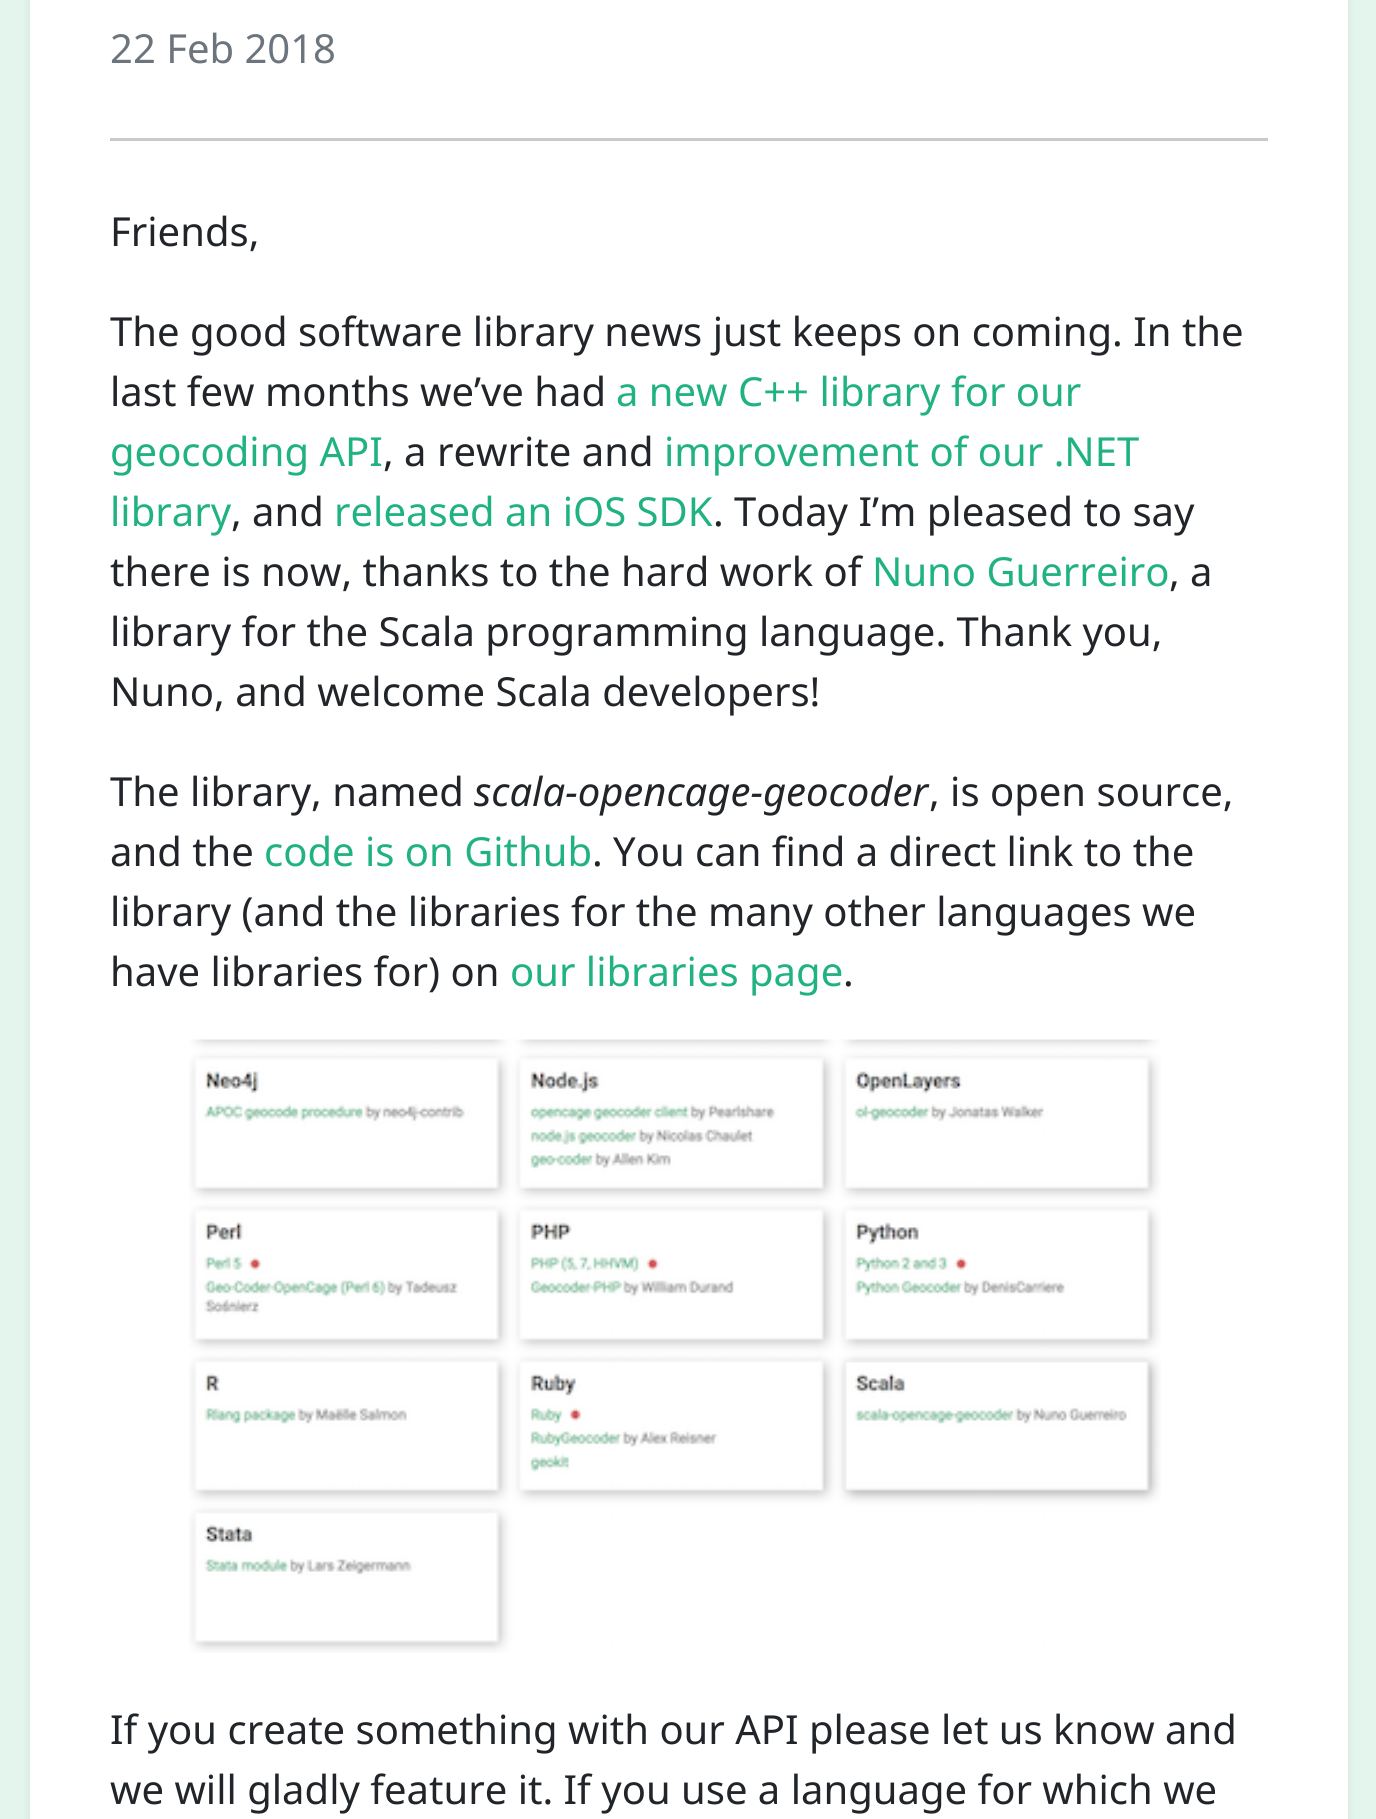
#include <cairo.h>
#include <math.h>
#include <stddef.h>

static cairo_t *ctx;

static void use_color(int r, int g, int b) {
    cairo_set_source_rgb(ctx, r / 255.0, g / 255.0, b / 255.0);
}

static void round_rect(double x, double y, double w, double h, double r) {
    cairo_new_sub_path(ctx);
    cairo_arc(ctx, x + w - r, y + h - r, r, 0, M_PI / 2);
    cairo_arc(ctx, x + r, y + h - r, r, M_PI / 2, M_PI);
    cairo_arc(ctx, x + r, y + r, r, M_PI, 1.5 * M_PI);
    cairo_arc(ctx, x + w - r, y + r, r, 1.5 * M_PI, 2 * M_PI);
    cairo_close_path(ctx);
}

static void shadow(double x, double y, double w, double h, double r, double blur, double alpha) {
    cairo_push_group_with_content(ctx, CAIRO_CONTENT_ALPHA);
    cairo_set_operator(ctx, CAIRO_OPERATOR_SOURCE);
    for (int i = 15; i >= -15 && fmin(w, h) + blur * i / 3 > 0; i -= 2) {
        double e = blur * i / 6;
        cairo_set_source_rgba(ctx, 0, 0, 0, alpha * erfc((i - 1) / 8.5) / 2);
        round_rect(x - e, y - e, w + 2 * e, h + 2 * e, fmax(0, fmin(r + e + blur * .6, fmin(w, h) / 2 + e)));
        cairo_fill(ctx);
    }
    cairo_pattern_t *soft = cairo_pop_group(ctx);
    cairo_mask(ctx, soft);
    cairo_pattern_destroy(soft);
}

static void picture(const char *path, double x, double y, double w, double h) {
    cairo_surface_t *image = cairo_image_surface_create_from_png(path);
    cairo_save(ctx);
    cairo_set_source_surface(ctx, image, x, y);
    cairo_rectangle(ctx, x, y, w, h);
    cairo_fill(ctx);
    cairo_restore(ctx);
    cairo_surface_destroy(image);
}

int main(void) {
    cairo_surface_t *surface = cairo_image_surface_create(CAIRO_FORMAT_RGB24, 1376, 1819);
    ctx = cairo_create(surface);
    cairo_font_options_t *options = cairo_font_options_create();
    cairo_font_options_set_hint_metrics(options, CAIRO_HINT_METRICS_OFF);
    cairo_font_options_set_hint_style(options, CAIRO_HINT_STYLE_NONE);
    cairo_set_font_options(ctx, options);
    cairo_set_miter_limit(ctx, 4);
    use_color(227, 245, 237);
    cairo_paint(ctx);
    use_color(0, 0, 0);
    shadow(30, -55, 1318, 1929, 40, 5, 0.07);
    use_color(255, 255, 255);
    cairo_rectangle(ctx, 30, 0, 1318, 1819);
    cairo_fill(ctx);
    cairo_select_font_face(ctx, "Noto Sans", CAIRO_FONT_SLANT_NORMAL, CAIRO_FONT_WEIGHT_NORMAL);
    cairo_set_font_size(ctx, 40);
    use_color(108, 117, 125);
    cairo_move_to(ctx, 110, 63);
    cairo_show_text(ctx, "22 Feb 2018");
    use_color(200, 201, 202);
    cairo_rectangle(ctx, 110, 138, 1158, 3);
    cairo_fill(ctx);
    use_color(33, 37, 41);
    cairo_move_to(ctx, 110, 246);
    cairo_show_text(ctx, "Friends,");
    cairo_move_to(ctx, 110, 346);
    cairo_show_text(ctx, "The good software library news just keeps on coming. In the");
    cairo_move_to(ctx, 110, 406);
    cairo_show_text(ctx, "last few months we’ve had");
    use_color(32, 178, 130);
    cairo_move_to(ctx, 616, 406);
    cairo_show_text(ctx, "a new C++ library for our");
    cairo_move_to(ctx, 110, 466);
    cairo_show_text(ctx, "geocoding API");
    use_color(33, 37, 41);
    cairo_move_to(ctx, 383, 466);
    cairo_show_text(ctx, ", a rewrite and");
    use_color(32, 178, 130);
    cairo_move_to(ctx, 664, 466);
    cairo_show_text(ctx, "improvement of our .NET");
    cairo_move_to(ctx, 110, 526);
    cairo_show_text(ctx, "library");
    use_color(33, 37, 41);
    cairo_move_to(ctx, 231, 526);
    cairo_show_text(ctx, ", and");
    use_color(32, 178, 130);
    cairo_move_to(ctx, 334, 526);
    cairo_show_text(ctx, "released an iOS SDK");
    use_color(33, 37, 41);
    cairo_move_to(ctx, 713, 526);
    cairo_show_text(ctx, ". Today I’m pleased to say");
    cairo_move_to(ctx, 110, 586);
    cairo_show_text(ctx, "there is now, thanks to the hard work of");
    use_color(32, 178, 130);
    cairo_move_to(ctx, 872, 586);
    cairo_show_text(ctx, "Nuno Guerreiro");
    use_color(33, 37, 41);
    cairo_move_to(ctx, 1169, 586);
    cairo_show_text(ctx, ", a");
    cairo_move_to(ctx, 110, 646);
    cairo_show_text(ctx, "library for the Scala programming language. Thank you,");
    cairo_move_to(ctx, 110, 706);
    cairo_show_text(ctx, "Nuno, and welcome Scala developers!");
    cairo_move_to(ctx, 110, 806);
    cairo_show_text(ctx, "The library, named");
    cairo_select_font_face(ctx, "Noto Sans", CAIRO_FONT_SLANT_ITALIC, CAIRO_FONT_WEIGHT_NORMAL);
    cairo_move_to(ctx, 474, 806);
    cairo_show_text(ctx, "scala-opencage-geocoder");
    cairo_select_font_face(ctx, "Noto Sans", CAIRO_FONT_SLANT_NORMAL, CAIRO_FONT_WEIGHT_NORMAL);
    cairo_move_to(ctx, 929, 806);
    cairo_show_text(ctx, ", is open source,");
    cairo_move_to(ctx, 110, 866);
    cairo_show_text(ctx, "and the");
    use_color(32, 178, 130);
    cairo_move_to(ctx, 264, 866);
    cairo_show_text(ctx, "code is on Github");
    use_color(33, 37, 41);
    cairo_move_to(ctx, 592, 866);
    cairo_show_text(ctx, ". You can find a direct link to the");
    cairo_move_to(ctx, 110, 926);
    cairo_show_text(ctx, "library (and the libraries for the many other languages we");
    cairo_move_to(ctx, 110, 986);
    cairo_show_text(ctx, "have libraries for) on");
    use_color(32, 178, 130);
    cairo_move_to(ctx, 510, 986);
    cairo_show_text(ctx, "our libraries page");
    use_color(33, 37, 41);
    cairo_move_to(ctx, 843, 986);
    cairo_show_text(ctx, ".");
    picture("img1.png", 189, 1039, 972, 614);
    cairo_move_to(ctx, 110, 1744);
    cairo_show_text(ctx, "If you create something with our API please let us know and");
    cairo_move_to(ctx, 110, 1804);
    cairo_show_text(ctx, "we will gladly feature it. If you use a language for which we");
    cairo_surface_write_to_png(surface, "result.png");
    cairo_font_options_destroy(options);
    cairo_destroy(ctx);
    cairo_surface_destroy(surface);
    return 0;
}
